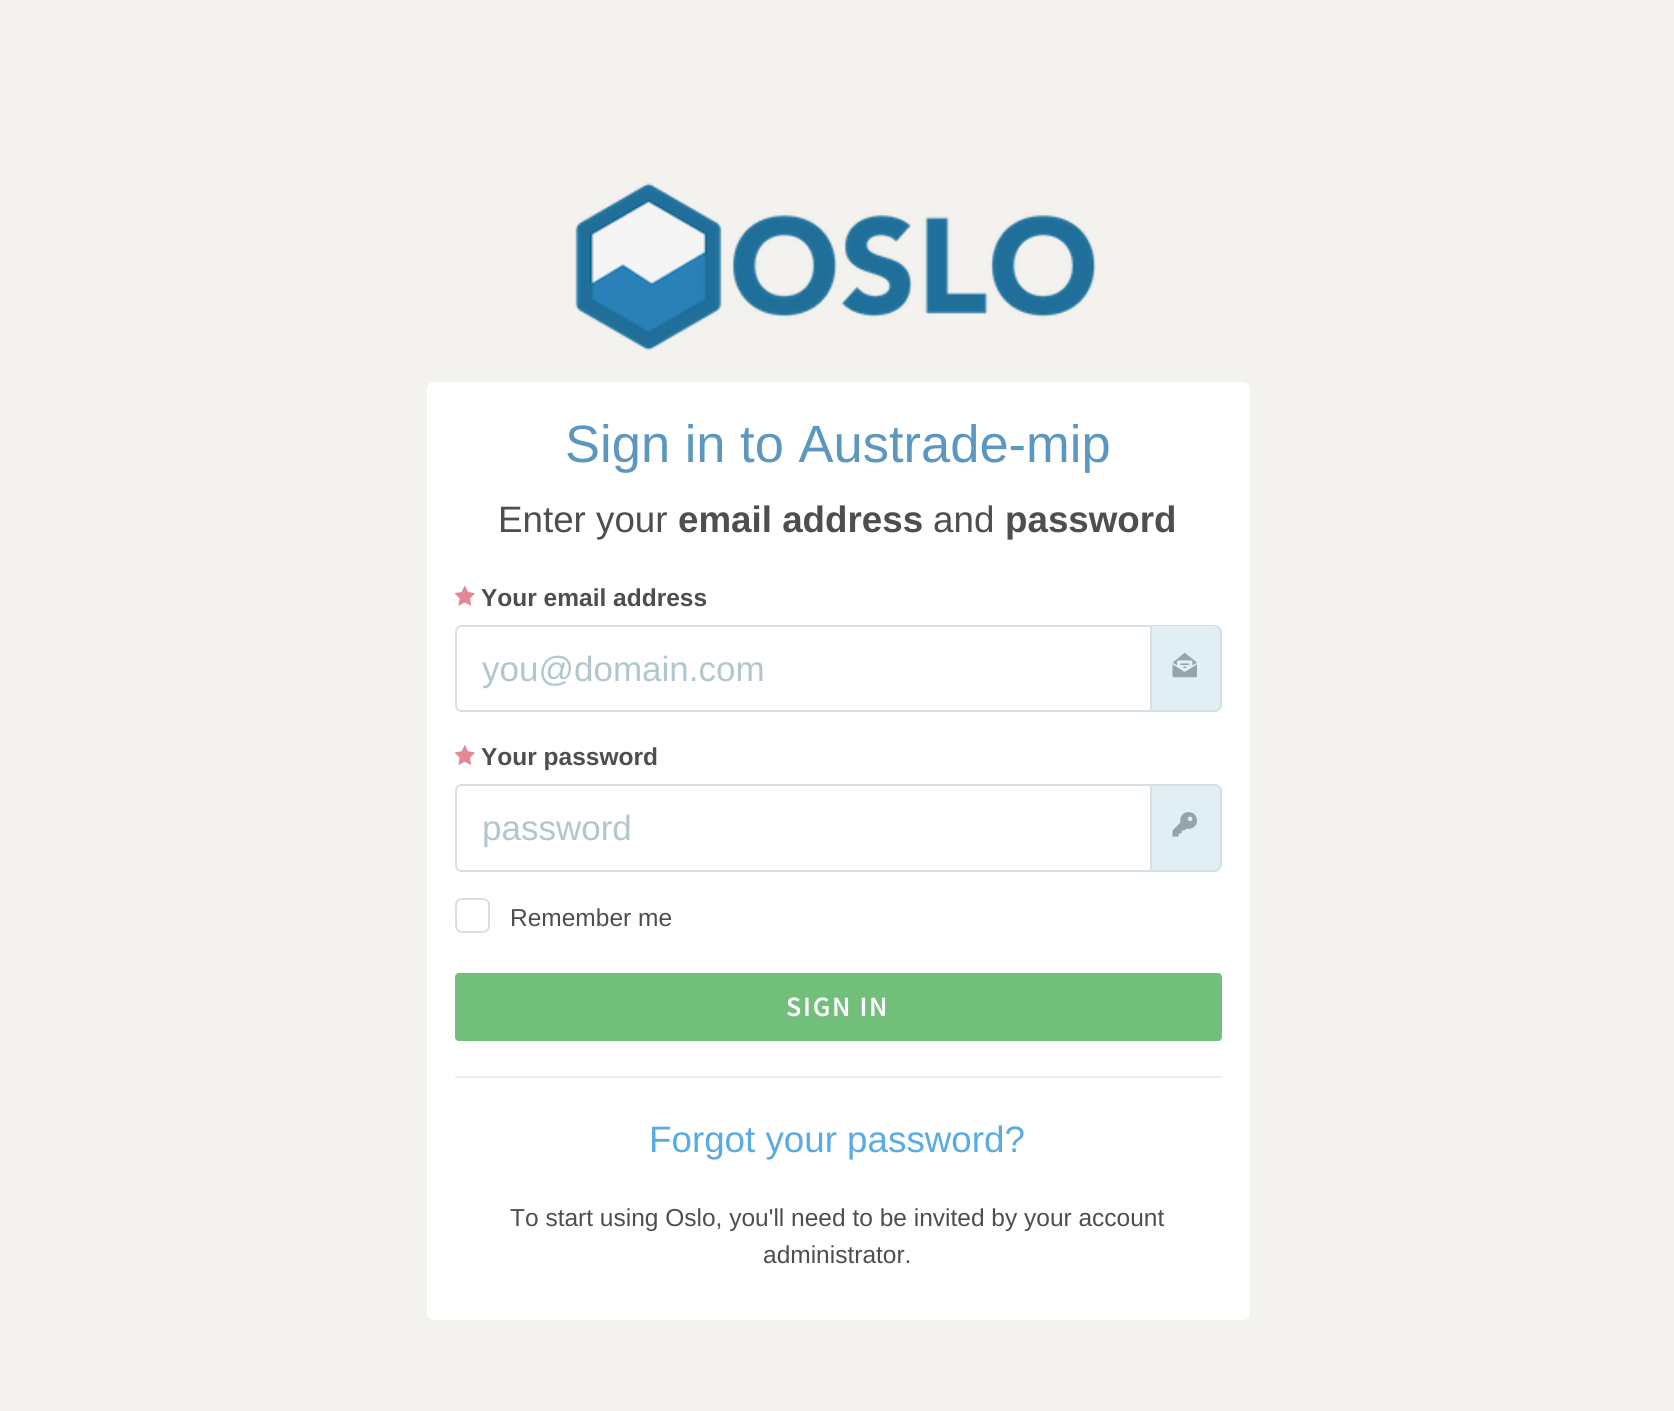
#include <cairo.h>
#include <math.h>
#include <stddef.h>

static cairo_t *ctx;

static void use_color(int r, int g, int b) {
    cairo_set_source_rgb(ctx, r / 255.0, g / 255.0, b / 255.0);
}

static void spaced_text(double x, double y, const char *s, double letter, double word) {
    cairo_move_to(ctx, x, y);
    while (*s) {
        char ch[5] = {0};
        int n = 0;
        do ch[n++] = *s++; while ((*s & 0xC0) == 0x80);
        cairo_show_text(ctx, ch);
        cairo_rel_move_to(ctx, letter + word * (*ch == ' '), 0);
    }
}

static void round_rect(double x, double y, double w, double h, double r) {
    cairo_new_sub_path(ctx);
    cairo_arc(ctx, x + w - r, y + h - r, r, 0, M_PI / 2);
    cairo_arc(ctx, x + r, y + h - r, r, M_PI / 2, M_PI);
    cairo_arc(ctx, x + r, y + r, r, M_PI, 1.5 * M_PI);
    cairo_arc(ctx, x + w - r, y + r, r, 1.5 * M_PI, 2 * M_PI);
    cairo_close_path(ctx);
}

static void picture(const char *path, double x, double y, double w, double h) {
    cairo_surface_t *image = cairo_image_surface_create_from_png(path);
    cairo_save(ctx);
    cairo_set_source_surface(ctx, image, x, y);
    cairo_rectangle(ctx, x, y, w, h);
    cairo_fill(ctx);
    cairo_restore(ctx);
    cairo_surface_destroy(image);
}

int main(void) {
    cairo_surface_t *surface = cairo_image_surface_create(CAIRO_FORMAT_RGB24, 1674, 1411);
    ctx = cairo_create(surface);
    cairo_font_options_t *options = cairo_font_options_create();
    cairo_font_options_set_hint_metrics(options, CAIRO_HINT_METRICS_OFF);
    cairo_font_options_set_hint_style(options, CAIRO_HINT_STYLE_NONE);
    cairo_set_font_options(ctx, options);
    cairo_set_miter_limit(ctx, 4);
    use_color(244, 242, 238);
    cairo_paint(ctx);
    picture("img1.png", 575, 183, 521, 168);
    use_color(255, 255, 255);
    round_rect(427, 382, 823, 938, 7);
    cairo_fill(ctx);
    cairo_select_font_face(ctx, "Liberation Sans", CAIRO_FONT_SLANT_NORMAL, CAIRO_FONT_WEIGHT_NORMAL);
    cairo_set_font_size(ctx, 52.5);
    use_color(92, 151, 191);
    cairo_move_to(ctx, 565, 462);
    cairo_show_text(ctx, "Sign in to Austrade-mip");
    cairo_set_font_size(ctx, 36.75);
    use_color(78, 78, 79);
    cairo_move_to(ctx, 498, 532);
    cairo_show_text(ctx, "Enter your");
    cairo_select_font_face(ctx, "Liberation Sans", CAIRO_FONT_SLANT_NORMAL, CAIRO_FONT_WEIGHT_BOLD);
    cairo_move_to(ctx, 678, 532);
    cairo_show_text(ctx, "email address");
    cairo_select_font_face(ctx, "Liberation Sans", CAIRO_FONT_SLANT_NORMAL, CAIRO_FONT_WEIGHT_NORMAL);
    cairo_move_to(ctx, 933, 532);
    cairo_show_text(ctx, "and");
    cairo_select_font_face(ctx, "Liberation Sans", CAIRO_FONT_SLANT_NORMAL, CAIRO_FONT_WEIGHT_BOLD);
    cairo_move_to(ctx, 1005, 532);
    cairo_show_text(ctx, "password");
    picture("img2.png", 455, 586, 20, 20);
    cairo_set_font_size(ctx, 24.5);
    cairo_move_to(ctx, 481, 606);
    cairo_show_text(ctx, "Your email address");
    cairo_new_path(ctx);
    cairo_move_to(ctx, 462, 626);
    cairo_line_to(ctx, 1151, 626);
    cairo_line_to(ctx, 1151, 711);
    cairo_line_to(ctx, 462, 711);
    cairo_curve_to(ctx, 458.5, 711, 456, 708.5, 456, 705);
    cairo_line_to(ctx, 456, 632);
    cairo_curve_to(ctx, 456, 628.5, 458.5, 626, 462, 626);
    cairo_close_path(ctx);
    use_color(214, 225, 229);
    cairo_stroke(ctx);
    cairo_select_font_face(ctx, "Liberation Sans", CAIRO_FONT_SLANT_NORMAL, CAIRO_FONT_WEIGHT_NORMAL);
    cairo_set_font_size(ctx, 35);
    use_color(178, 198, 205);
    cairo_move_to(ctx, 482, 681);
    cairo_show_text(ctx, "you@domain.com");
    use_color(225, 238, 243);
    cairo_new_path(ctx);
    cairo_move_to(ctx, 1152, 625);
    cairo_line_to(ctx, 1215, 625);
    cairo_curve_to(ctx, 1219, 625, 1222, 628, 1222, 632);
    cairo_line_to(ctx, 1222, 705);
    cairo_curve_to(ctx, 1222, 709, 1219, 712, 1215, 712);
    cairo_line_to(ctx, 1152, 712);
    cairo_close_path(ctx);
    cairo_fill(ctx);
    use_color(214, 225, 229);
    cairo_set_fill_rule(ctx, CAIRO_FILL_RULE_EVEN_ODD);
    cairo_new_path(ctx);
    cairo_move_to(ctx, 1152, 625);
    cairo_line_to(ctx, 1214, 625);
    cairo_curve_to(ctx, 1218, 625, 1222, 628, 1222, 632);
    cairo_line_to(ctx, 1222, 705);
    cairo_curve_to(ctx, 1222, 709, 1218, 712, 1214, 712);
    cairo_line_to(ctx, 1152, 712);
    cairo_close_path(ctx);
    cairo_move_to(ctx, 1152, 626);
    cairo_line_to(ctx, 1214, 626);
    cairo_curve_to(ctx, 1217, 626, 1220, 629, 1220, 632);
    cairo_line_to(ctx, 1220, 705);
    cairo_curve_to(ctx, 1220, 708, 1217, 710, 1214, 710);
    cairo_line_to(ctx, 1152, 710);
    cairo_close_path(ctx);
    cairo_fill(ctx);
    picture("img3.png", 1172, 652, 25, 26);
    picture("img4.png", 455, 745, 20, 20);
    cairo_select_font_face(ctx, "Liberation Sans", CAIRO_FONT_SLANT_NORMAL, CAIRO_FONT_WEIGHT_BOLD);
    cairo_set_font_size(ctx, 24.5);
    use_color(78, 78, 79);
    cairo_move_to(ctx, 481, 765);
    cairo_show_text(ctx, "Your password");
    cairo_new_path(ctx);
    cairo_move_to(ctx, 462, 785);
    cairo_line_to(ctx, 1151, 785);
    cairo_line_to(ctx, 1151, 871);
    cairo_line_to(ctx, 462, 871);
    cairo_curve_to(ctx, 458.5, 871, 456, 868.5, 456, 865);
    cairo_line_to(ctx, 456, 791);
    cairo_curve_to(ctx, 456, 787.5, 458.5, 785, 462, 785);
    cairo_close_path(ctx);
    use_color(214, 225, 229);
    cairo_stroke(ctx);
    cairo_select_font_face(ctx, "Liberation Sans", CAIRO_FONT_SLANT_NORMAL, CAIRO_FONT_WEIGHT_NORMAL);
    cairo_set_font_size(ctx, 35);
    use_color(178, 198, 205);
    cairo_move_to(ctx, 482, 840);
    cairo_show_text(ctx, "password");
    use_color(225, 238, 243);
    cairo_new_path(ctx);
    cairo_move_to(ctx, 1152, 784);
    cairo_line_to(ctx, 1215, 784);
    cairo_curve_to(ctx, 1219, 784, 1222, 787, 1222, 791);
    cairo_line_to(ctx, 1222, 865);
    cairo_curve_to(ctx, 1222, 869, 1219, 872, 1215, 872);
    cairo_line_to(ctx, 1152, 872);
    cairo_close_path(ctx);
    cairo_fill(ctx);
    use_color(214, 225, 229);
    cairo_new_path(ctx);
    cairo_move_to(ctx, 1152, 784);
    cairo_line_to(ctx, 1214, 784);
    cairo_curve_to(ctx, 1218, 784, 1222, 787, 1222, 791);
    cairo_line_to(ctx, 1222, 864);
    cairo_curve_to(ctx, 1222, 868, 1218, 872, 1214, 872);
    cairo_line_to(ctx, 1152, 872);
    cairo_close_path(ctx);
    cairo_move_to(ctx, 1152, 786);
    cairo_line_to(ctx, 1214, 786);
    cairo_curve_to(ctx, 1217, 786, 1220, 788, 1220, 791);
    cairo_line_to(ctx, 1220, 864);
    cairo_curve_to(ctx, 1220, 867, 1217, 870, 1214, 870);
    cairo_line_to(ctx, 1152, 870);
    cairo_close_path(ctx);
    cairo_fill(ctx);
    picture("img5.png", 1172, 812, 25, 25);
    round_rect(456, 899, 33, 33, 6);
    cairo_stroke(ctx);
    cairo_set_font_size(ctx, 24.5);
    use_color(78, 78, 79);
    cairo_move_to(ctx, 510, 926);
    cairo_show_text(ctx, "Remember me");
    use_color(114, 191, 123);
    round_rect(455, 973, 767, 68, 4);
    cairo_fill(ctx);
    cairo_select_font_face(ctx, "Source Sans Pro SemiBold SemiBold", CAIRO_FONT_SLANT_NORMAL, CAIRO_FONT_WEIGHT_NORMAL);
    cairo_set_font_size(ctx, 28);
    use_color(255, 255, 255);
    spaced_text(786, 1016, "SIGN IN", 1.75, 0);
    use_color(238, 238, 238);
    cairo_rectangle(ctx, 455, 1076, 767, 2);
    cairo_fill(ctx);
    cairo_select_font_face(ctx, "Liberation Sans", CAIRO_FONT_SLANT_NORMAL, CAIRO_FONT_WEIGHT_NORMAL);
    cairo_set_font_size(ctx, 36.75);
    use_color(89, 171, 227);
    cairo_move_to(ctx, 649, 1152);
    cairo_show_text(ctx, "Forgot your password?");
    cairo_set_font_size(ctx, 24.5);
    use_color(78, 78, 79);
    cairo_move_to(ctx, 510, 1226);
    cairo_show_text(ctx, "To start using Oslo, you'll need to be invited by your account");
    cairo_move_to(ctx, 763, 1263);
    cairo_show_text(ctx, "administrator.");
    cairo_surface_write_to_png(surface, "result.png");
    cairo_font_options_destroy(options);
    cairo_destroy(ctx);
    cairo_surface_destroy(surface);
    return 0;
}
